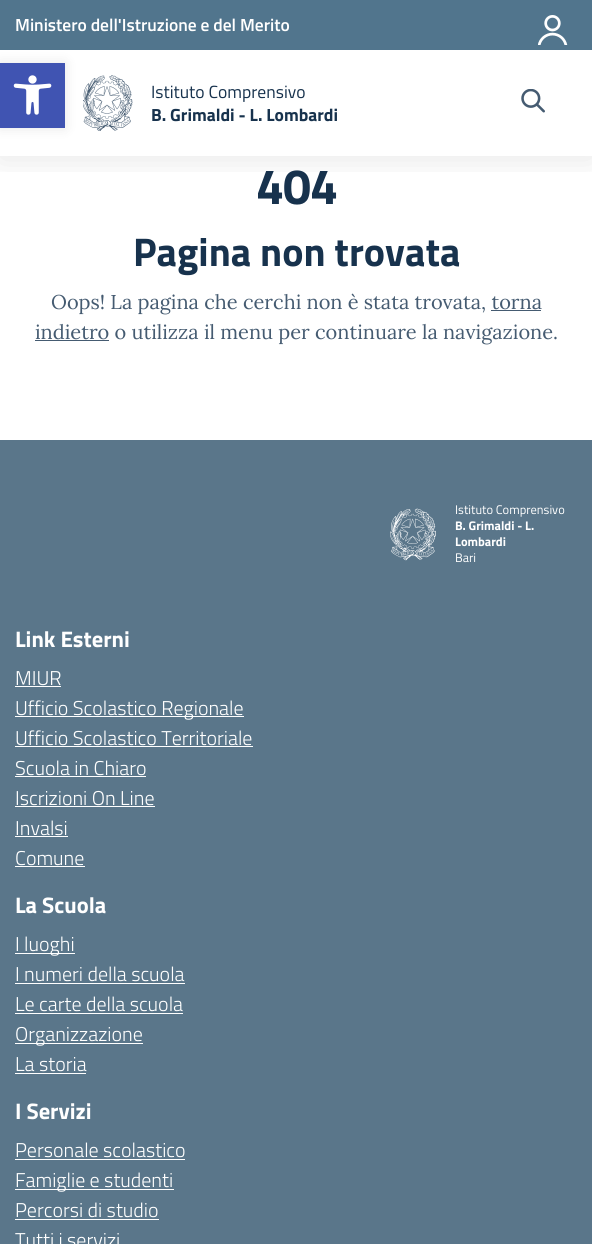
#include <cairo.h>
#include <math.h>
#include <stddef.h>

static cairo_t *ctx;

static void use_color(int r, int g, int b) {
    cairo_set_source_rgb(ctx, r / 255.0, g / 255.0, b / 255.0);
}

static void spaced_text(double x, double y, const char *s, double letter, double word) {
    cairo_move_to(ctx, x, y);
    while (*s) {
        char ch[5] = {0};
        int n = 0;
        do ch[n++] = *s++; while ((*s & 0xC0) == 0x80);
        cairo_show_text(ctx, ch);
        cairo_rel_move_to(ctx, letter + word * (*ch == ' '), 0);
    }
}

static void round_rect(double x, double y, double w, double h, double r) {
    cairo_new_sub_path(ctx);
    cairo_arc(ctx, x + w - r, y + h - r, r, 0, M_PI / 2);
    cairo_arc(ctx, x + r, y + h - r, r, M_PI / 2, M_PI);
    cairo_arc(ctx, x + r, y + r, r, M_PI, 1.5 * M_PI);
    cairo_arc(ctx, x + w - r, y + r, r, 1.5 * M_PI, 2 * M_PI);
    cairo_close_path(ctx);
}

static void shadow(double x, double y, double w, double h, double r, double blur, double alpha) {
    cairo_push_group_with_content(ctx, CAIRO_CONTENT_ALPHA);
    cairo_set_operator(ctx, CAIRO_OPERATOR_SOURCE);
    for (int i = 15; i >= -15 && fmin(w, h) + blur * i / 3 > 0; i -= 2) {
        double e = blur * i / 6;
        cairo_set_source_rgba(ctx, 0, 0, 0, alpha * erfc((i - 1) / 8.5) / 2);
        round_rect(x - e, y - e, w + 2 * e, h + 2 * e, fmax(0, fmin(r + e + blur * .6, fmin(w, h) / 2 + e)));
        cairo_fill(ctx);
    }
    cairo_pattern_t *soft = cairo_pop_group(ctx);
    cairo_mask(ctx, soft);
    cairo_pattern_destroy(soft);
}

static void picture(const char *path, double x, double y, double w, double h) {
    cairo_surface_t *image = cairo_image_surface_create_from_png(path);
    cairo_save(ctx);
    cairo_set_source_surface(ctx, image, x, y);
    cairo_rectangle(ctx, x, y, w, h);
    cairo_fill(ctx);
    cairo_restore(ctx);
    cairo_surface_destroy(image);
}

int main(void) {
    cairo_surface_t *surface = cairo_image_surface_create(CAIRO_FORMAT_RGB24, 592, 1244);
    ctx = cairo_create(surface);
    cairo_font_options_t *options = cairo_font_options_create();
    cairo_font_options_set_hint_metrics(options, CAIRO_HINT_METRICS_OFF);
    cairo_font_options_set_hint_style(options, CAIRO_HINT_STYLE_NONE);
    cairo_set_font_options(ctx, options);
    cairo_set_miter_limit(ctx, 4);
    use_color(255, 255, 255);
    cairo_paint(ctx);
    cairo_save(ctx);
    cairo_rectangle(ctx, 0, 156, 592, 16);
    cairo_clip(ctx);
    use_color(0, 0, 0);
    shadow(0, 3, 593, 156, 0, 15.5, 0.1);
    cairo_restore(ctx);
    use_color(81, 117, 141);
    cairo_rectangle(ctx, 0, 0, 592, 50);
    cairo_fill(ctx);
    cairo_select_font_face(ctx, "Titillium Web SemiBold", CAIRO_FONT_SLANT_NORMAL, CAIRO_FONT_WEIGHT_NORMAL);
    cairo_set_font_size(ctx, 17.5);
    use_color(255, 255, 255);
    cairo_move_to(ctx, 15, 31);
    cairo_show_text(ctx, "Ministero dell'Istruzione e del Merito");
    picture("img1.png", 538, 15, 30, 30);
    picture("img2.png", 83, 75, 50, 56);
    cairo_select_font_face(ctx, "Titillium Web", CAIRO_FONT_SLANT_NORMAL, CAIRO_FONT_WEIGHT_NORMAL);
    cairo_set_font_size(ctx, 17.6);
    use_color(23, 50, 77);
    cairo_move_to(ctx, 151, 98);
    cairo_show_text(ctx, "Istituto Comprensivo");
    cairo_select_font_face(ctx, "Titillium Web", CAIRO_FONT_SLANT_NORMAL, CAIRO_FONT_WEIGHT_BOLD);
    cairo_move_to(ctx, 151, 121);
    cairo_show_text(ctx, "B. Grimaldi - L. Lombardi");
    picture("img3.png", 521, 89, 24, 24);
    cairo_set_font_size(ctx, 50);
    spaced_text(256, 204, "404", -1, 0);
    cairo_set_font_size(ctx, 40);
    cairo_move_to(ctx, 133, 266);
    cairo_show_text(ctx, "Pagina non trovata");
    cairo_select_font_face(ctx, "Lora", CAIRO_FONT_SLANT_NORMAL, CAIRO_FONT_WEIGHT_NORMAL);
    cairo_set_font_size(ctx, 20);
    use_color(69, 91, 113);
    cairo_move_to(ctx, 51, 309);
    cairo_show_text(ctx, "Oops! La pagina che cerchi non è stata trovata, torna");
    cairo_rectangle(ctx, 35, 340, 74, 1);
    cairo_fill(ctx);
    cairo_move_to(ctx, 35, 339);
    cairo_show_text(ctx, "indietro o utilizza il menu per continuare la navigazione.");
    cairo_rectangle(ctx, 491, 310, 50, 1);
    cairo_fill(ctx);
    use_color(90, 118, 138);
    cairo_rectangle(ctx, 0, 440, 592, 804);
    cairo_fill(ctx);
    picture("img4.png", 390, 508, 46, 53);
    cairo_select_font_face(ctx, "Titillium Web", CAIRO_FONT_SLANT_NORMAL, CAIRO_FONT_WEIGHT_NORMAL);
    cairo_set_font_size(ctx, 12.5);
    use_color(255, 255, 255);
    cairo_move_to(ctx, 455, 514);
    cairo_show_text(ctx, "Istituto Comprensivo");
    cairo_select_font_face(ctx, "Titillium Web", CAIRO_FONT_SLANT_NORMAL, CAIRO_FONT_WEIGHT_BOLD);
    cairo_move_to(ctx, 455, 530);
    cairo_show_text(ctx, "B. Grimaldi - L.");
    cairo_move_to(ctx, 455, 546);
    cairo_show_text(ctx, "Lombardi");
    cairo_select_font_face(ctx, "Titillium Web", CAIRO_FONT_SLANT_NORMAL, CAIRO_FONT_WEIGHT_NORMAL);
    cairo_move_to(ctx, 455, 562);
    cairo_show_text(ctx, "Bari");
    cairo_select_font_face(ctx, "Titillium Web", CAIRO_FONT_SLANT_NORMAL, CAIRO_FONT_WEIGHT_BOLD);
    cairo_set_font_size(ctx, 22.5);
    cairo_move_to(ctx, 15, 647);
    cairo_show_text(ctx, "Link Esterni");
    cairo_select_font_face(ctx, "Titillium Web Light", CAIRO_FONT_SLANT_NORMAL, CAIRO_FONT_WEIGHT_NORMAL);
    cairo_set_font_size(ctx, 20);
    cairo_move_to(ctx, 15, 685);
    cairo_show_text(ctx, "MIUR");
    cairo_rectangle(ctx, 15, 686, 46, 1);
    cairo_fill(ctx);
    cairo_rectangle(ctx, 15, 716, 229, 1);
    cairo_fill(ctx);
    cairo_move_to(ctx, 15, 715);
    cairo_show_text(ctx, "Ufficio Scolastico Regionale");
    cairo_move_to(ctx, 15, 745);
    cairo_show_text(ctx, "Ufficio Scolastico Territoriale");
    cairo_rectangle(ctx, 15, 746, 238, 1);
    cairo_fill(ctx);
    cairo_move_to(ctx, 15, 775);
    cairo_show_text(ctx, "Scuola in Chiaro");
    cairo_rectangle(ctx, 15, 776, 131, 1);
    cairo_fill(ctx);
    cairo_move_to(ctx, 15, 805);
    cairo_show_text(ctx, "Iscrizioni On Line");
    cairo_rectangle(ctx, 15, 806, 140, 1);
    cairo_fill(ctx);
    cairo_move_to(ctx, 15, 835);
    cairo_show_text(ctx, "Invalsi");
    cairo_rectangle(ctx, 15, 836, 53, 1);
    cairo_fill(ctx);
    cairo_move_to(ctx, 15, 865);
    cairo_show_text(ctx, "Comune");
    cairo_rectangle(ctx, 15, 866, 70, 1);
    cairo_fill(ctx);
    cairo_select_font_face(ctx, "Titillium Web", CAIRO_FONT_SLANT_NORMAL, CAIRO_FONT_WEIGHT_BOLD);
    cairo_set_font_size(ctx, 22.5);
    cairo_move_to(ctx, 15, 913);
    cairo_show_text(ctx, "La Scuola");
    cairo_rectangle(ctx, 15, 953, 60, 1);
    cairo_fill(ctx);
    cairo_select_font_face(ctx, "Titillium Web Light", CAIRO_FONT_SLANT_NORMAL, CAIRO_FONT_WEIGHT_NORMAL);
    cairo_set_font_size(ctx, 20);
    cairo_move_to(ctx, 15, 951);
    cairo_show_text(ctx, "I luoghi");
    cairo_move_to(ctx, 15, 981);
    cairo_show_text(ctx, "I numeri della scuola");
    cairo_rectangle(ctx, 15, 983, 170, 1);
    cairo_fill(ctx);
    cairo_move_to(ctx, 15, 1011);
    cairo_show_text(ctx, "Le carte della scuola");
    cairo_rectangle(ctx, 15, 1013, 168, 1);
    cairo_fill(ctx);
    cairo_rectangle(ctx, 15, 1043, 128, 1);
    cairo_fill(ctx);
    cairo_move_to(ctx, 15, 1041);
    cairo_show_text(ctx, "Organizzazione");
    cairo_move_to(ctx, 15, 1071);
    cairo_show_text(ctx, "La storia");
    cairo_rectangle(ctx, 15, 1073, 71, 1);
    cairo_fill(ctx);
    cairo_select_font_face(ctx, "Titillium Web", CAIRO_FONT_SLANT_NORMAL, CAIRO_FONT_WEIGHT_BOLD);
    cairo_set_font_size(ctx, 22.5);
    cairo_move_to(ctx, 15, 1119);
    cairo_show_text(ctx, "I Servizi");
    cairo_select_font_face(ctx, "Titillium Web Light", CAIRO_FONT_SLANT_NORMAL, CAIRO_FONT_WEIGHT_NORMAL);
    cairo_set_font_size(ctx, 20);
    cairo_move_to(ctx, 15, 1157);
    cairo_show_text(ctx, "Personale scolastico");
    cairo_rectangle(ctx, 15, 1159, 170, 1);
    cairo_fill(ctx);
    cairo_rectangle(ctx, 15, 1189, 159, 1);
    cairo_fill(ctx);
    cairo_move_to(ctx, 15, 1187);
    cairo_show_text(ctx, "Famiglie e studenti");
    cairo_move_to(ctx, 15, 1217);
    cairo_show_text(ctx, "Percorsi di studio");
    cairo_rectangle(ctx, 15, 1219, 144, 1);
    cairo_fill(ctx);
    cairo_move_to(ctx, 15, 1247);
    cairo_show_text(ctx, "Tutti i servizi");
    use_color(0, 0, 0);
    shadow(0, 63, 65, 65, 0, 6, 0.1);
    use_color(64, 84, 178);
    cairo_rectangle(ctx, 0, 63, 65, 65);
    cairo_fill(ctx);
    picture("img5.png", 13, 75, 39, 40);
    cairo_surface_write_to_png(surface, "result.png");
    cairo_font_options_destroy(options);
    cairo_destroy(ctx);
    cairo_surface_destroy(surface);
    return 0;
}
